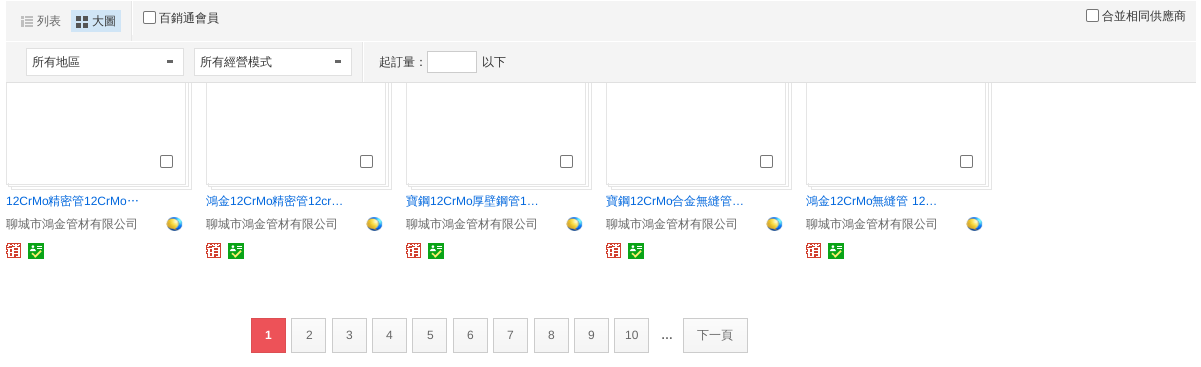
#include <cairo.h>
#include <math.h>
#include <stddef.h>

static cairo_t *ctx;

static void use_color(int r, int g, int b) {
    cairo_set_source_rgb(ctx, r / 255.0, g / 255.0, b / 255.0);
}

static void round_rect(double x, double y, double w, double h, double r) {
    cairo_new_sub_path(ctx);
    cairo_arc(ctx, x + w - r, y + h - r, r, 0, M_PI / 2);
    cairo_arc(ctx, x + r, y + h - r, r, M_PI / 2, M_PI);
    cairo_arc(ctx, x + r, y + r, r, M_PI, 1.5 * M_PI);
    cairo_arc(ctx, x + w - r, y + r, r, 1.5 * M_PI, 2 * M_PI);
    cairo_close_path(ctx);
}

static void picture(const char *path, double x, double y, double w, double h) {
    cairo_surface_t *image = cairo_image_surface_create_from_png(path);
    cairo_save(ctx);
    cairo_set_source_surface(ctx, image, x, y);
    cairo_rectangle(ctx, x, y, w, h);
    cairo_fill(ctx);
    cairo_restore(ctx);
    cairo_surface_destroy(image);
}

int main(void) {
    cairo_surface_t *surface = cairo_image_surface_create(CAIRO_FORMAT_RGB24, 1201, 367);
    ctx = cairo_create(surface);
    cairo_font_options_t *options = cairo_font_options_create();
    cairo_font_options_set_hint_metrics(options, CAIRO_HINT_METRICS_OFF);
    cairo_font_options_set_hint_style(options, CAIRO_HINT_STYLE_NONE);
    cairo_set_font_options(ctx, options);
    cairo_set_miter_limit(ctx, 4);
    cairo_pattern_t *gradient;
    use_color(255, 255, 255);
    cairo_paint(ctx);
    picture("img3.png", 8, 83, 184, 107);
    cairo_rectangle(ctx, 6.5, -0.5, 179, 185);
    use_color(229, 229, 229);
    cairo_set_line_width(ctx, 1);
    cairo_stroke(ctx);
    picture("img3.png", 208, 83, 184, 107);
    cairo_rectangle(ctx, 206.5, -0.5, 179, 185);
    cairo_stroke(ctx);
    picture("img3.png", 408, 83, 184, 107);
    cairo_rectangle(ctx, 406.5, -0.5, 179, 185);
    cairo_stroke(ctx);
    picture("img3.png", 608, 83, 184, 107);
    cairo_rectangle(ctx, 606.5, -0.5, 179, 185);
    cairo_stroke(ctx);
    picture("img3.png", 808, 83, 184, 107);
    cairo_rectangle(ctx, 806.5, -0.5, 179, 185);
    cairo_stroke(ctx);
    use_color(224, 224, 224);
    cairo_rectangle(ctx, 6, 82, 1190, 1);
    cairo_fill(ctx);
    use_color(244, 244, 244);
    cairo_rectangle(ctx, 6, 1, 1190, 40);
    cairo_fill(ctx);
    use_color(255, 255, 255);
    cairo_rectangle(ctx, 6, 0, 980, 1);
    cairo_fill(ctx);
    use_color(230, 230, 230);
    cairo_rectangle(ctx, 131, 1, 1, 40);
    cairo_fill(ctx);
    picture("img1.png", 21, 16, 12, 11);
    cairo_select_font_face(ctx, "WenQuanYi Zen Hei Medium", CAIRO_FONT_SLANT_NORMAL, CAIRO_FONT_WEIGHT_NORMAL);
    cairo_set_font_size(ctx, 12);
    use_color(102, 102, 102);
    cairo_move_to(ctx, 37, 25);
    cairo_show_text(ctx, "列表");
    use_color(208, 229, 246);
    cairo_rectangle(ctx, 71, 10, 50, 22);
    cairo_fill(ctx);
    picture("img2.png", 76, 16, 12, 12);
    use_color(51, 51, 51);
    cairo_move_to(ctx, 92, 25);
    cairo_show_text(ctx, "大圖");
    use_color(255, 255, 255);
    cairo_rectangle(ctx, 132, 1, 1, 34);
    cairo_fill(ctx);
    round_rect(143.5, 11.5, 12, 12, 1.5);
    cairo_fill_preserve(ctx);
    use_color(118, 118, 118);
    cairo_stroke(ctx);
    use_color(51, 51, 51);
    cairo_move_to(ctx, 159, 22);
    cairo_show_text(ctx, "百銷通會員");
    use_color(255, 255, 255);
    round_rect(1086.5, 9.5, 12, 12, 1.5);
    cairo_fill_preserve(ctx);
    use_color(118, 118, 118);
    cairo_stroke(ctx);
    use_color(51, 51, 51);
    cairo_move_to(ctx, 1102, 20);
    cairo_show_text(ctx, "合並相同供應商");
    use_color(244, 244, 244);
    cairo_rectangle(ctx, 6, 42, 1190, 40);
    cairo_fill(ctx);
    use_color(255, 255, 255);
    cairo_rectangle(ctx, 6, 41, 980, 1);
    cairo_fill(ctx);
    use_color(230, 230, 230);
    cairo_rectangle(ctx, 362, 42, 1, 40);
    cairo_fill(ctx);
    use_color(255, 255, 255);
    cairo_rectangle(ctx, 26.5, 48.5, 157, 27);
    cairo_fill_preserve(ctx);
    use_color(224, 224, 224);
    cairo_stroke(ctx);
    use_color(51, 51, 51);
    cairo_move_to(ctx, 32, 66);
    cairo_show_text(ctx, "所有地區");
    use_color(102, 102, 102);
    cairo_rectangle(ctx, 167, 60, 6, 3);
    cairo_fill(ctx);
    use_color(255, 255, 255);
    cairo_rectangle(ctx, 194.5, 48.5, 157, 27);
    cairo_fill_preserve(ctx);
    use_color(224, 224, 224);
    cairo_stroke(ctx);
    use_color(51, 51, 51);
    cairo_move_to(ctx, 200, 66);
    cairo_show_text(ctx, "所有經營模式");
    use_color(102, 102, 102);
    cairo_rectangle(ctx, 335, 60, 6, 3);
    cairo_fill(ctx);
    use_color(255, 255, 255);
    cairo_rectangle(ctx, 363, 42, 1, 40);
    cairo_fill(ctx);
    use_color(51, 51, 51);
    cairo_move_to(ctx, 379, 66);
    cairo_show_text(ctx, "起訂量：");
    use_color(255, 255, 255);
    cairo_rectangle(ctx, 427.5, 51.5, 49, 21);
    cairo_fill_preserve(ctx);
    use_color(204, 204, 204);
    cairo_stroke(ctx);
    use_color(51, 51, 51);
    cairo_move_to(ctx, 482, 66);
    cairo_show_text(ctx, "以下");
    round_rect(160.5, 155.5, 12, 12, 1.5);
    use_color(118, 118, 118);
    cairo_stroke(ctx);
    cairo_select_font_face(ctx, "Liberation Sans", CAIRO_FONT_SLANT_NORMAL, CAIRO_FONT_WEIGHT_NORMAL);
    use_color(0, 102, 221);
    cairo_move_to(ctx, 6, 205);
    cairo_show_text(ctx, "12CrMo");
    cairo_select_font_face(ctx, "WenQuanYi Zen Hei Medium", CAIRO_FONT_SLANT_NORMAL, CAIRO_FONT_WEIGHT_NORMAL);
    cairo_move_to(ctx, 48, 205);
    cairo_show_text(ctx, "精密管");
    cairo_select_font_face(ctx, "Liberation Sans", CAIRO_FONT_SLANT_NORMAL, CAIRO_FONT_WEIGHT_NORMAL);
    cairo_move_to(ctx, 84, 205);
    cairo_show_text(ctx, "12CrMo");
    cairo_select_font_face(ctx, "WenQuanYi Zen Hei Medium", CAIRO_FONT_SLANT_NORMAL, CAIRO_FONT_WEIGHT_NORMAL);
    cairo_move_to(ctx, 127, 205);
    cairo_show_text(ctx, "…");
    cairo_save(ctx);
    cairo_rectangle(ctx, 6, 215, 140, 18);
    cairo_clip(ctx);
    use_color(102, 102, 102);
    cairo_move_to(ctx, 6, 228);
    cairo_show_text(ctx, "聊城市鴻金管材有限公司");
    cairo_restore(ctx);
    picture("img4.png", 166, 217, 17, 14);
    picture("img5.png", 6, 243, 15, 15);
    picture("img6.png", 28, 243, 16, 16);
    round_rect(360.5, 155.5, 12, 12, 1.5);
    use_color(118, 118, 118);
    cairo_stroke(ctx);
    use_color(0, 102, 221);
    cairo_move_to(ctx, 206, 205);
    cairo_show_text(ctx, "鴻金");
    cairo_select_font_face(ctx, "Liberation Sans", CAIRO_FONT_SLANT_NORMAL, CAIRO_FONT_WEIGHT_NORMAL);
    cairo_move_to(ctx, 230, 205);
    cairo_show_text(ctx, "12CrMo");
    cairo_select_font_face(ctx, "WenQuanYi Zen Hei Medium", CAIRO_FONT_SLANT_NORMAL, CAIRO_FONT_WEIGHT_NORMAL);
    cairo_move_to(ctx, 272, 205);
    cairo_show_text(ctx, "精密管");
    cairo_select_font_face(ctx, "Liberation Sans", CAIRO_FONT_SLANT_NORMAL, CAIRO_FONT_WEIGHT_NORMAL);
    cairo_move_to(ctx, 308, 205);
    cairo_show_text(ctx, "12cr…");
    cairo_save(ctx);
    cairo_rectangle(ctx, 206, 215, 140, 18);
    cairo_clip(ctx);
    cairo_select_font_face(ctx, "WenQuanYi Zen Hei Medium", CAIRO_FONT_SLANT_NORMAL, CAIRO_FONT_WEIGHT_NORMAL);
    use_color(102, 102, 102);
    cairo_move_to(ctx, 206, 228);
    cairo_show_text(ctx, "聊城市鴻金管材有限公司");
    cairo_restore(ctx);
    picture("img4.png", 366, 217, 17, 14);
    picture("img5.png", 206, 243, 15, 15);
    picture("img6.png", 228, 243, 16, 16);
    round_rect(560.5, 155.5, 12, 12, 1.5);
    use_color(118, 118, 118);
    cairo_stroke(ctx);
    cairo_select_font_face(ctx, "WenQuanYi Zen Hei Medium", CAIRO_FONT_SLANT_NORMAL, CAIRO_FONT_WEIGHT_NORMAL);
    use_color(0, 102, 221);
    cairo_move_to(ctx, 406, 205);
    cairo_show_text(ctx, "寶鋼");
    cairo_select_font_face(ctx, "Liberation Sans", CAIRO_FONT_SLANT_NORMAL, CAIRO_FONT_WEIGHT_NORMAL);
    cairo_move_to(ctx, 430, 205);
    cairo_show_text(ctx, "12CrMo");
    cairo_select_font_face(ctx, "WenQuanYi Zen Hei Medium", CAIRO_FONT_SLANT_NORMAL, CAIRO_FONT_WEIGHT_NORMAL);
    cairo_move_to(ctx, 472, 205);
    cairo_show_text(ctx, "厚壁鋼管");
    cairo_select_font_face(ctx, "Liberation Sans", CAIRO_FONT_SLANT_NORMAL, CAIRO_FONT_WEIGHT_NORMAL);
    cairo_move_to(ctx, 520, 205);
    cairo_show_text(ctx, "1…");
    cairo_save(ctx);
    cairo_rectangle(ctx, 406, 215, 140, 18);
    cairo_clip(ctx);
    cairo_select_font_face(ctx, "WenQuanYi Zen Hei Medium", CAIRO_FONT_SLANT_NORMAL, CAIRO_FONT_WEIGHT_NORMAL);
    use_color(102, 102, 102);
    cairo_move_to(ctx, 406, 228);
    cairo_show_text(ctx, "聊城市鴻金管材有限公司");
    cairo_restore(ctx);
    picture("img4.png", 566, 217, 17, 14);
    picture("img5.png", 406, 243, 15, 15);
    picture("img6.png", 428, 243, 16, 16);
    round_rect(760.5, 155.5, 12, 12, 1.5);
    use_color(118, 118, 118);
    cairo_stroke(ctx);
    cairo_select_font_face(ctx, "WenQuanYi Zen Hei Medium", CAIRO_FONT_SLANT_NORMAL, CAIRO_FONT_WEIGHT_NORMAL);
    use_color(0, 102, 221);
    cairo_move_to(ctx, 606, 205);
    cairo_show_text(ctx, "寶鋼");
    cairo_select_font_face(ctx, "Liberation Sans", CAIRO_FONT_SLANT_NORMAL, CAIRO_FONT_WEIGHT_NORMAL);
    cairo_move_to(ctx, 630, 205);
    cairo_show_text(ctx, "12CrMo");
    cairo_select_font_face(ctx, "WenQuanYi Zen Hei Medium", CAIRO_FONT_SLANT_NORMAL, CAIRO_FONT_WEIGHT_NORMAL);
    cairo_move_to(ctx, 672, 205);
    cairo_show_text(ctx, "合金無縫管");
    cairo_select_font_face(ctx, "Liberation Sans", CAIRO_FONT_SLANT_NORMAL, CAIRO_FONT_WEIGHT_NORMAL);
    cairo_move_to(ctx, 732, 205);
    cairo_show_text(ctx, "…");
    cairo_save(ctx);
    cairo_rectangle(ctx, 606, 215, 140, 18);
    cairo_clip(ctx);
    cairo_select_font_face(ctx, "WenQuanYi Zen Hei Medium", CAIRO_FONT_SLANT_NORMAL, CAIRO_FONT_WEIGHT_NORMAL);
    use_color(102, 102, 102);
    cairo_move_to(ctx, 606, 228);
    cairo_show_text(ctx, "聊城市鴻金管材有限公司");
    cairo_restore(ctx);
    picture("img4.png", 766, 217, 17, 14);
    picture("img5.png", 606, 243, 15, 15);
    picture("img6.png", 628, 243, 16, 16);
    round_rect(960.5, 155.5, 12, 12, 1.5);
    use_color(118, 118, 118);
    cairo_stroke(ctx);
    cairo_select_font_face(ctx, "WenQuanYi Zen Hei Medium", CAIRO_FONT_SLANT_NORMAL, CAIRO_FONT_WEIGHT_NORMAL);
    use_color(0, 102, 221);
    cairo_move_to(ctx, 806, 205);
    cairo_show_text(ctx, "鴻金");
    cairo_select_font_face(ctx, "Liberation Sans", CAIRO_FONT_SLANT_NORMAL, CAIRO_FONT_WEIGHT_NORMAL);
    cairo_move_to(ctx, 830, 205);
    cairo_show_text(ctx, "12CrMo");
    cairo_select_font_face(ctx, "WenQuanYi Zen Hei Medium", CAIRO_FONT_SLANT_NORMAL, CAIRO_FONT_WEIGHT_NORMAL);
    cairo_move_to(ctx, 872, 205);
    cairo_show_text(ctx, "無縫管");
    cairo_select_font_face(ctx, "Liberation Sans", CAIRO_FONT_SLANT_NORMAL, CAIRO_FONT_WEIGHT_NORMAL);
    cairo_move_to(ctx, 912, 205);
    cairo_show_text(ctx, "12…");
    cairo_save(ctx);
    cairo_rectangle(ctx, 806, 215, 140, 18);
    cairo_clip(ctx);
    cairo_select_font_face(ctx, "WenQuanYi Zen Hei Medium", CAIRO_FONT_SLANT_NORMAL, CAIRO_FONT_WEIGHT_NORMAL);
    use_color(102, 102, 102);
    cairo_move_to(ctx, 806, 228);
    cairo_show_text(ctx, "聊城市鴻金管材有限公司");
    cairo_restore(ctx);
    picture("img4.png", 966, 217, 17, 14);
    picture("img5.png", 806, 243, 15, 15);
    picture("img6.png", 828, 243, 16, 16);
    use_color(237, 82, 88);
    cairo_rectangle(ctx, 251.5, 318.5, 34, 34);
    cairo_fill_preserve(ctx);
    use_color(220, 79, 83);
    cairo_stroke(ctx);
    cairo_select_font_face(ctx, "Liberation Sans", CAIRO_FONT_SLANT_NORMAL, CAIRO_FONT_WEIGHT_BOLD);
    use_color(255, 255, 255);
    cairo_move_to(ctx, 265, 339);
    cairo_show_text(ctx, "1");
    gradient = cairo_pattern_create_linear(309, 319, 309, 352);
    cairo_pattern_add_color_stop_rgba(gradient, 0, 0.984, 0.984, 0.984, 1);
    cairo_pattern_add_color_stop_rgba(gradient, 1, 0.957, 0.957, 0.957, 1);
    cairo_set_source(ctx, gradient);
    cairo_pattern_destroy(gradient);
    cairo_rectangle(ctx, 292, 319, 33, 33);
    cairo_fill(ctx);
    cairo_rectangle(ctx, 291.5, 318.5, 34, 34);
    use_color(204, 204, 204);
    cairo_stroke(ctx);
    cairo_select_font_face(ctx, "Liberation Sans", CAIRO_FONT_SLANT_NORMAL, CAIRO_FONT_WEIGHT_NORMAL);
    use_color(102, 102, 102);
    cairo_move_to(ctx, 306, 339);
    cairo_show_text(ctx, "2");
    gradient = cairo_pattern_create_linear(350, 319, 350, 352);
    cairo_pattern_add_color_stop_rgba(gradient, 0, 0.984, 0.984, 0.984, 1);
    cairo_pattern_add_color_stop_rgba(gradient, 1, 0.957, 0.957, 0.957, 1);
    cairo_set_source(ctx, gradient);
    cairo_pattern_destroy(gradient);
    cairo_rectangle(ctx, 333, 319, 33, 33);
    cairo_fill(ctx);
    cairo_rectangle(ctx, 332.5, 318.5, 34, 34);
    use_color(204, 204, 204);
    cairo_stroke(ctx);
    use_color(102, 102, 102);
    cairo_move_to(ctx, 346, 339);
    cairo_show_text(ctx, "3");
    gradient = cairo_pattern_create_linear(390, 319, 390, 352);
    cairo_pattern_add_color_stop_rgba(gradient, 0, 0.984, 0.984, 0.984, 1);
    cairo_pattern_add_color_stop_rgba(gradient, 1, 0.957, 0.957, 0.957, 1);
    cairo_set_source(ctx, gradient);
    cairo_pattern_destroy(gradient);
    cairo_rectangle(ctx, 373, 319, 33, 33);
    cairo_fill(ctx);
    cairo_rectangle(ctx, 372.5, 318.5, 34, 34);
    use_color(204, 204, 204);
    cairo_stroke(ctx);
    use_color(102, 102, 102);
    cairo_move_to(ctx, 386, 339);
    cairo_show_text(ctx, "4");
    gradient = cairo_pattern_create_linear(430, 319, 430, 352);
    cairo_pattern_add_color_stop_rgba(gradient, 0, 0.984, 0.984, 0.984, 1);
    cairo_pattern_add_color_stop_rgba(gradient, 1, 0.957, 0.957, 0.957, 1);
    cairo_set_source(ctx, gradient);
    cairo_pattern_destroy(gradient);
    cairo_rectangle(ctx, 413, 319, 33, 33);
    cairo_fill(ctx);
    cairo_rectangle(ctx, 412.5, 318.5, 34, 34);
    use_color(204, 204, 204);
    cairo_stroke(ctx);
    use_color(102, 102, 102);
    cairo_move_to(ctx, 427, 339);
    cairo_show_text(ctx, "5");
    gradient = cairo_pattern_create_linear(471, 319, 471, 352);
    cairo_pattern_add_color_stop_rgba(gradient, 0, 0.984, 0.984, 0.984, 1);
    cairo_pattern_add_color_stop_rgba(gradient, 1, 0.957, 0.957, 0.957, 1);
    cairo_set_source(ctx, gradient);
    cairo_pattern_destroy(gradient);
    cairo_rectangle(ctx, 454, 319, 33, 33);
    cairo_fill(ctx);
    cairo_rectangle(ctx, 453.5, 318.5, 34, 34);
    use_color(204, 204, 204);
    cairo_stroke(ctx);
    use_color(102, 102, 102);
    cairo_move_to(ctx, 467, 339);
    cairo_show_text(ctx, "6");
    gradient = cairo_pattern_create_linear(511, 319, 511, 352);
    cairo_pattern_add_color_stop_rgba(gradient, 0, 0.984, 0.984, 0.984, 1);
    cairo_pattern_add_color_stop_rgba(gradient, 1, 0.957, 0.957, 0.957, 1);
    cairo_set_source(ctx, gradient);
    cairo_pattern_destroy(gradient);
    cairo_rectangle(ctx, 494, 319, 33, 33);
    cairo_fill(ctx);
    cairo_rectangle(ctx, 493.5, 318.5, 34, 34);
    use_color(204, 204, 204);
    cairo_stroke(ctx);
    use_color(102, 102, 102);
    cairo_move_to(ctx, 507, 339);
    cairo_show_text(ctx, "7");
    gradient = cairo_pattern_create_linear(552, 319, 552, 352);
    cairo_pattern_add_color_stop_rgba(gradient, 0, 0.984, 0.984, 0.984, 1);
    cairo_pattern_add_color_stop_rgba(gradient, 1, 0.957, 0.957, 0.957, 1);
    cairo_set_source(ctx, gradient);
    cairo_pattern_destroy(gradient);
    cairo_rectangle(ctx, 535, 319, 33, 33);
    cairo_fill(ctx);
    cairo_rectangle(ctx, 534.5, 318.5, 34, 34);
    use_color(204, 204, 204);
    cairo_stroke(ctx);
    use_color(102, 102, 102);
    cairo_move_to(ctx, 548, 339);
    cairo_show_text(ctx, "8");
    gradient = cairo_pattern_create_linear(592, 319, 592, 352);
    cairo_pattern_add_color_stop_rgba(gradient, 0, 0.984, 0.984, 0.984, 1);
    cairo_pattern_add_color_stop_rgba(gradient, 1, 0.957, 0.957, 0.957, 1);
    cairo_set_source(ctx, gradient);
    cairo_pattern_destroy(gradient);
    cairo_rectangle(ctx, 575, 319, 33, 33);
    cairo_fill(ctx);
    cairo_rectangle(ctx, 574.5, 318.5, 34, 34);
    use_color(204, 204, 204);
    cairo_stroke(ctx);
    use_color(102, 102, 102);
    cairo_move_to(ctx, 588, 339);
    cairo_show_text(ctx, "9");
    gradient = cairo_pattern_create_linear(632, 319, 632, 352);
    cairo_pattern_add_color_stop_rgba(gradient, 0, 0.984, 0.984, 0.984, 1);
    cairo_pattern_add_color_stop_rgba(gradient, 1, 0.957, 0.957, 0.957, 1);
    cairo_set_source(ctx, gradient);
    cairo_pattern_destroy(gradient);
    cairo_rectangle(ctx, 615, 319, 33, 33);
    cairo_fill(ctx);
    cairo_rectangle(ctx, 614.5, 318.5, 34, 34);
    use_color(204, 204, 204);
    cairo_stroke(ctx);
    use_color(102, 102, 102);
    cairo_move_to(ctx, 625, 339);
    cairo_show_text(ctx, "10");
    cairo_select_font_face(ctx, "Liberation Sans", CAIRO_FONT_SLANT_NORMAL, CAIRO_FONT_WEIGHT_BOLD);
    cairo_move_to(ctx, 661, 339);
    cairo_show_text(ctx, "…");
    gradient = cairo_pattern_create_linear(716, 319, 716, 352);
    cairo_pattern_add_color_stop_rgba(gradient, 0, 0.984, 0.984, 0.984, 1);
    cairo_pattern_add_color_stop_rgba(gradient, 1, 0.957, 0.957, 0.957, 1);
    cairo_set_source(ctx, gradient);
    cairo_pattern_destroy(gradient);
    cairo_rectangle(ctx, 684, 319, 63, 33);
    cairo_fill(ctx);
    cairo_rectangle(ctx, 683.5, 318.5, 64, 34);
    use_color(204, 204, 204);
    cairo_stroke(ctx);
    cairo_select_font_face(ctx, "WenQuanYi Zen Hei Medium", CAIRO_FONT_SLANT_NORMAL, CAIRO_FONT_WEIGHT_NORMAL);
    use_color(102, 102, 102);
    cairo_move_to(ctx, 697, 339);
    cairo_show_text(ctx, "下一頁");
    cairo_surface_write_to_png(surface, "result.png");
    cairo_font_options_destroy(options);
    cairo_destroy(ctx);
    cairo_surface_destroy(surface);
    return 0;
}
